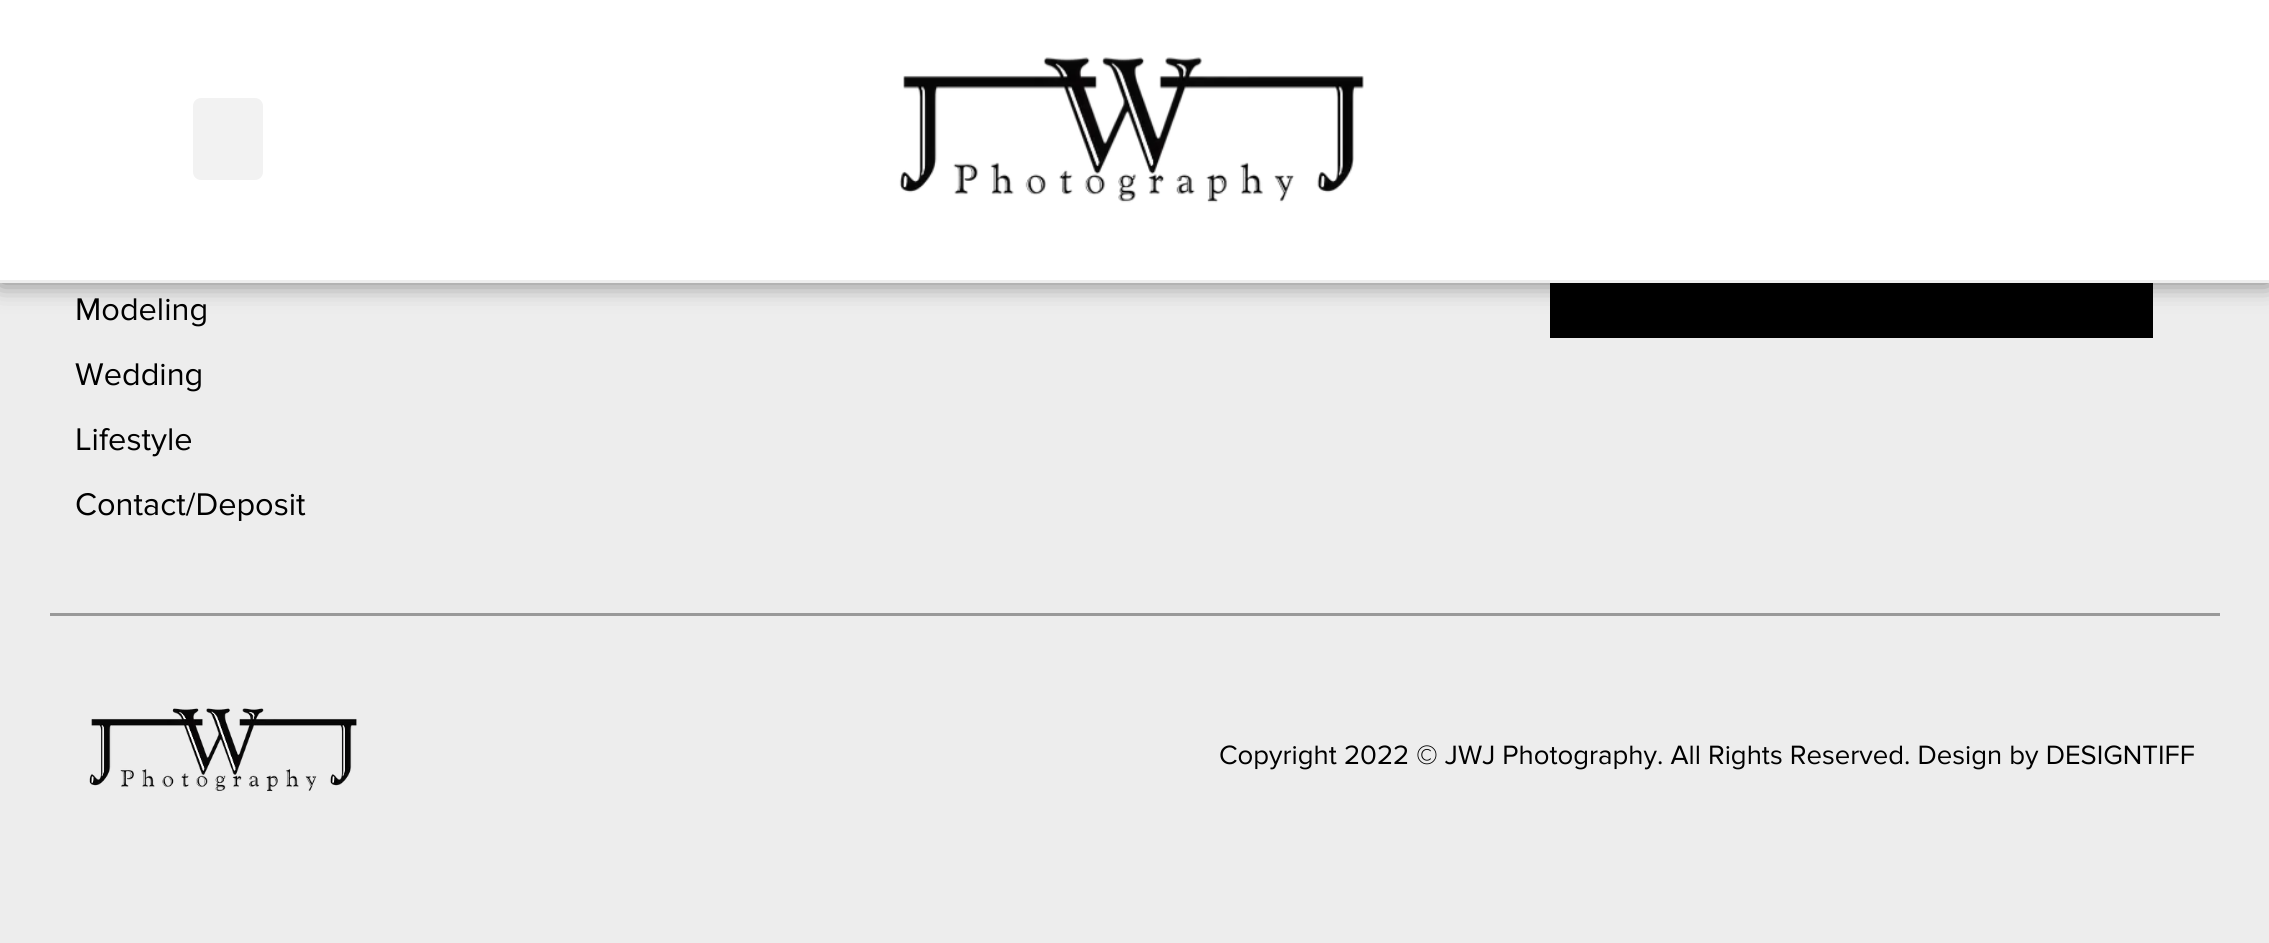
#include <cairo.h>
#include <math.h>
#include <stddef.h>

static cairo_t *ctx;

static void use_color(int r, int g, int b) {
    cairo_set_source_rgb(ctx, r / 255.0, g / 255.0, b / 255.0);
}

static void round_rect(double x, double y, double w, double h, double r) {
    cairo_new_sub_path(ctx);
    cairo_arc(ctx, x + w - r, y + h - r, r, 0, M_PI / 2);
    cairo_arc(ctx, x + r, y + h - r, r, M_PI / 2, M_PI);
    cairo_arc(ctx, x + r, y + r, r, M_PI, 1.5 * M_PI);
    cairo_arc(ctx, x + w - r, y + r, r, 1.5 * M_PI, 2 * M_PI);
    cairo_close_path(ctx);
}

static void shadow(double x, double y, double w, double h, double r, double blur, double alpha) {
    cairo_push_group_with_content(ctx, CAIRO_CONTENT_ALPHA);
    cairo_set_operator(ctx, CAIRO_OPERATOR_SOURCE);
    for (int i = 15; i >= -15 && fmin(w, h) + blur * i / 3 > 0; i -= 2) {
        double e = blur * i / 6;
        cairo_set_source_rgba(ctx, 0, 0, 0, alpha * erfc((i - 1) / 8.5) / 2);
        round_rect(x - e, y - e, w + 2 * e, h + 2 * e, fmax(0, fmin(r + e + blur * .6, fmin(w, h) / 2 + e)));
        cairo_fill(ctx);
    }
    cairo_pattern_t *soft = cairo_pop_group(ctx);
    cairo_mask(ctx, soft);
    cairo_pattern_destroy(soft);
}

static void picture(const char *path, double x, double y, double w, double h) {
    cairo_surface_t *image = cairo_image_surface_create_from_png(path);
    cairo_save(ctx);
    cairo_set_source_surface(ctx, image, x, y);
    cairo_rectangle(ctx, x, y, w, h);
    cairo_fill(ctx);
    cairo_restore(ctx);
    cairo_surface_destroy(image);
}

int main(void) {
    cairo_surface_t *surface = cairo_image_surface_create(CAIRO_FORMAT_RGB24, 2269, 943);
    ctx = cairo_create(surface);
    cairo_font_options_t *options = cairo_font_options_create();
    cairo_font_options_set_hint_metrics(options, CAIRO_HINT_METRICS_OFF);
    cairo_font_options_set_hint_style(options, CAIRO_HINT_STYLE_NONE);
    cairo_set_font_options(ctx, options);
    cairo_set_miter_limit(ctx, 4);
    use_color(237, 237, 237);
    cairo_paint(ctx);
    use_color(0, 0, 0);
    cairo_rectangle(ctx, 1550, 283, 603, 55);
    cairo_fill(ctx);
    use_color(0, 0, 0);
    shadow(0, 0, 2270, 283, 0, 12.5, 0.5);
    use_color(255, 255, 255);
    cairo_rectangle(ctx, 0, 0, 2269, 280);
    cairo_fill(ctx);
    use_color(237, 237, 237);
    cairo_rectangle(ctx, 0, 280, 2269, 3);
    cairo_fill(ctx);
    use_color(242, 242, 242);
    round_rect(193, 98, 70, 82, 8);
    cairo_fill(ctx);
    picture("img1.png", 899, 57, 465, 146);
    cairo_select_font_face(ctx, "Proxima Nova", CAIRO_FONT_SLANT_NORMAL, CAIRO_FONT_WEIGHT_NORMAL);
    cairo_set_font_size(ctx, 32.5);
    use_color(0, 0, 0);
    cairo_move_to(ctx, 75, 320);
    cairo_show_text(ctx, "Modeling");
    cairo_move_to(ctx, 75, 385);
    cairo_show_text(ctx, "Wedding");
    cairo_move_to(ctx, 75, 450);
    cairo_show_text(ctx, "Lifestyle");
    cairo_move_to(ctx, 75, 515);
    cairo_show_text(ctx, "Contact/Deposit");
    use_color(153, 153, 153);
    cairo_rectangle(ctx, 50, 613, 2170, 3);
    cairo_fill(ctx);
    picture("img2.png", 89, 708, 268, 84);
    cairo_set_font_size(ctx, 27.5);
    use_color(0, 0, 0);
    cairo_move_to(ctx, 1219, 764);
    cairo_show_text(ctx, "Copyright 2022 © JWJ Photography. All Rights Reserved. Design by DESIGNTIFF");
    cairo_surface_write_to_png(surface, "result.png");
    cairo_font_options_destroy(options);
    cairo_destroy(ctx);
    cairo_surface_destroy(surface);
    return 0;
}
